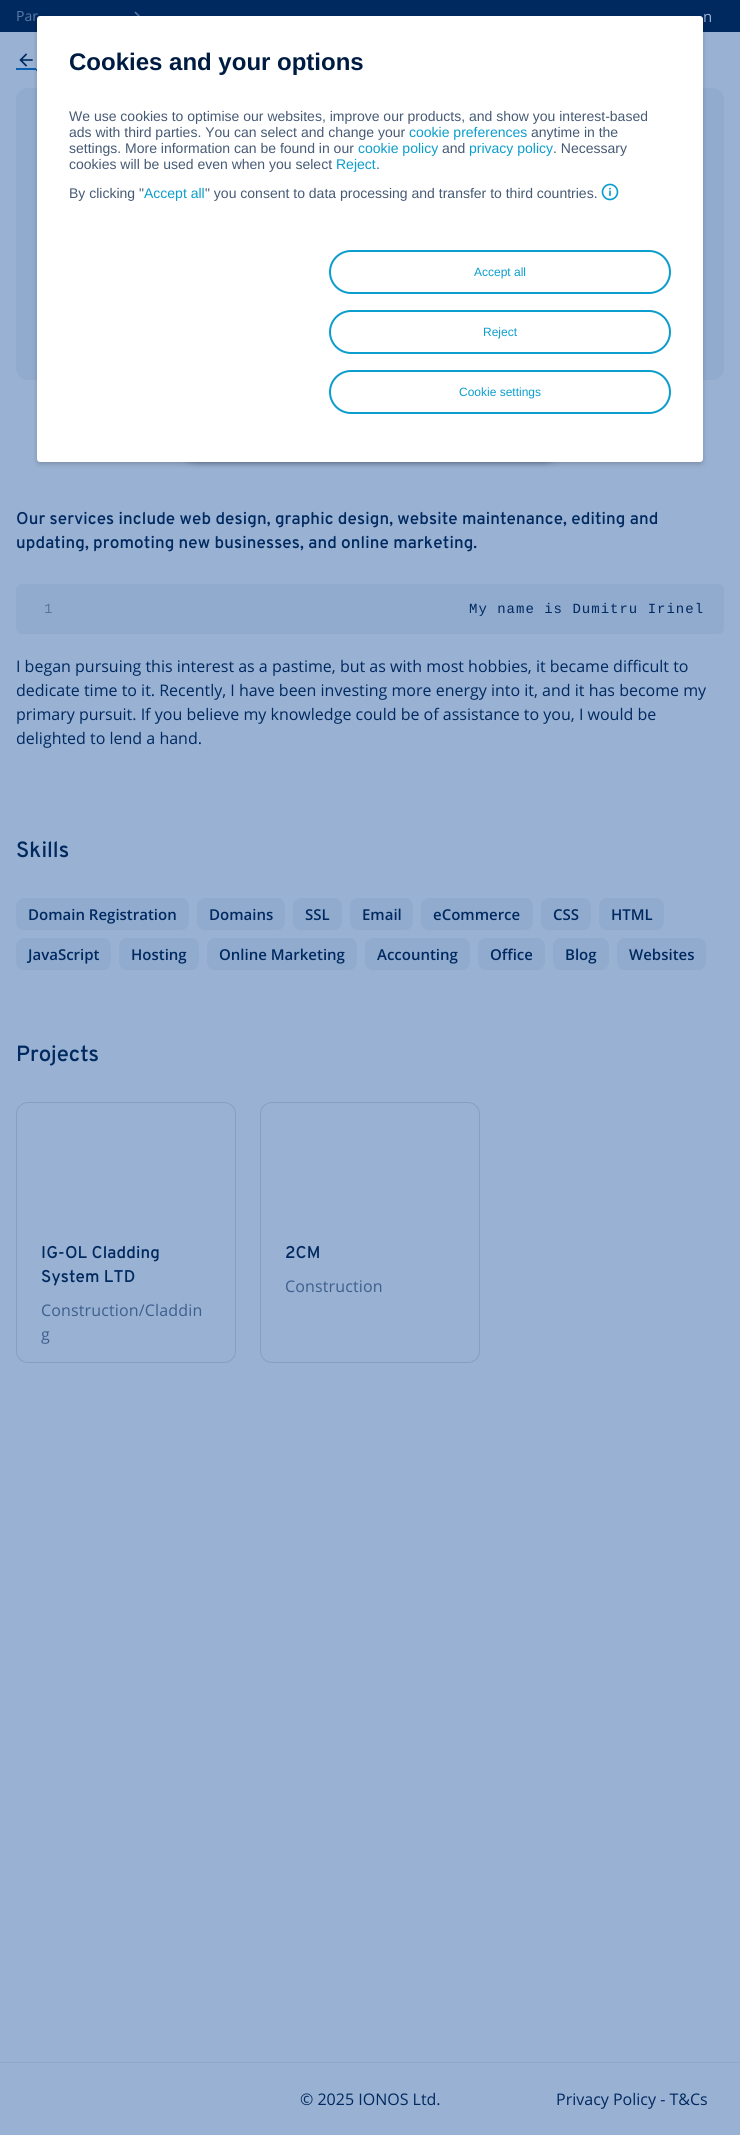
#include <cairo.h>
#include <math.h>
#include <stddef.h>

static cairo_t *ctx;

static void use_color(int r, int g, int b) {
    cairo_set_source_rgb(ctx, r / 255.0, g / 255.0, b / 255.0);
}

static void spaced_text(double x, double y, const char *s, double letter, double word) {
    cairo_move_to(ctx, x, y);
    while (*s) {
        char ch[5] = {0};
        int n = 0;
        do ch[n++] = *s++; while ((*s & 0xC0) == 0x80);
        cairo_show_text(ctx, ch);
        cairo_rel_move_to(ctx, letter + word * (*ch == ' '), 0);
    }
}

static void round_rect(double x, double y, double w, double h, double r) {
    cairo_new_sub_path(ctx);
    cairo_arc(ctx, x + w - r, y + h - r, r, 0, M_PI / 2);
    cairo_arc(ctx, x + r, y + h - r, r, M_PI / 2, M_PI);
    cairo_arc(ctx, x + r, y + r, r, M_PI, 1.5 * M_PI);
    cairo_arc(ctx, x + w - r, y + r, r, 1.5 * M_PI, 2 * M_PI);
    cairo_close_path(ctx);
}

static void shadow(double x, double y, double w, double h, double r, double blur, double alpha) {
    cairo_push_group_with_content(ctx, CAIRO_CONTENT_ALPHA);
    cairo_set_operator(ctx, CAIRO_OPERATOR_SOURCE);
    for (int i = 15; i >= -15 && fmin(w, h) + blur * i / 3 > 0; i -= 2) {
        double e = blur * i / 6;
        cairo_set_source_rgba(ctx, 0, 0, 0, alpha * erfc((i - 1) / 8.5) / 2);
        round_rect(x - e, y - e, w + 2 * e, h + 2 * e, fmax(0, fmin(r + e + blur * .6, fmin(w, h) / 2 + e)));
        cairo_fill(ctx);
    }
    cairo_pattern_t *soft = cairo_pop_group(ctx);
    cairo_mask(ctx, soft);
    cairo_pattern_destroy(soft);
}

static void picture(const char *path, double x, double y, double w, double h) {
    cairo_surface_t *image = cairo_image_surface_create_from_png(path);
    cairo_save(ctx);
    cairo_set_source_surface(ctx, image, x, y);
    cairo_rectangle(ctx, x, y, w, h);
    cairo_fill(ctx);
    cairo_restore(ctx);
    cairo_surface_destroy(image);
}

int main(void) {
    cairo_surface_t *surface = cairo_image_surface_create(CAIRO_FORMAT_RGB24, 740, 2135);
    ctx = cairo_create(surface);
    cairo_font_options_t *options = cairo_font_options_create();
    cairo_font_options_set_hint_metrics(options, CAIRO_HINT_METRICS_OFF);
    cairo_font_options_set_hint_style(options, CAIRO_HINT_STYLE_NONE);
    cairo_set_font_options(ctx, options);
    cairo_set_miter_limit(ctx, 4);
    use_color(153, 177, 210);
    cairo_paint(ctx);
    use_color(0, 41, 96);
    cairo_rectangle(ctx, 0, 0, 740, 32);
    cairo_fill(ctx);
    cairo_select_font_face(ctx, "Open Sans", CAIRO_FONT_SLANT_NORMAL, CAIRO_FONT_WEIGHT_NORMAL);
    cairo_set_font_size(ctx, 14);
    use_color(92, 123, 165);
    cairo_move_to(ctx, 16, 21);
    cairo_show_text(ctx, "Par");
    picture("img1.png", 134, 11, 6, 5);
    cairo_set_font_size(ctx, 15);
    use_color(153, 177, 210);
    cairo_move_to(ctx, 703, 22);
    cairo_show_text(ctx, "n");
    use_color(12, 94, 175);
    cairo_rectangle(ctx, 16, 68, 20, 2);
    cairo_fill(ctx);
    cairo_rectangle(ctx, 36, 69, 1, 2);
    cairo_fill(ctx);
    picture("img2.png", 19, 53, 14, 14);
    use_color(145, 171, 206);
    round_rect(16, 88, 708, 292, 12);
    cairo_fill(ctx);
    use_color(0, 24, 57);
    shadow(175, 413, 390, 48, 24, 5, 0.12);
    shadow(175, 416, 390, 48, 24, 2.5, 0.14);
    shadow(176, 415, 388, 46, 23, 2, 0.2);
    cairo_select_font_face(ctx, "Overpass SemiBold", CAIRO_FONT_SLANT_NORMAL, CAIRO_FONT_WEIGHT_NORMAL);
    cairo_set_font_size(ctx, 17);
    use_color(0, 41, 96);
    spaced_text(16, 524, "Our services include web design, graphic design, website maintenance, editing and", 0.15, 0);
    spaced_text(16, 548, "updating, promoting new businesses, and online marketing.", 0.15, 0);
    use_color(145, 171, 206);
    round_rect(16, 584, 708, 50, 6);
    cairo_fill(ctx);
    cairo_select_font_face(ctx, "Liberation Mono", CAIRO_FONT_SLANT_NORMAL, CAIRO_FONT_WEIGHT_NORMAL);
    cairo_set_font_size(ctx, 14);
    use_color(92, 116, 149);
    spaced_text(44, 613, "1", -1, 0);
    use_color(0, 41, 96);
    spaced_text(469, 613, "My name is Dumitru Irinel", 1, 0);
    cairo_select_font_face(ctx, "Open Sans", CAIRO_FONT_SLANT_NORMAL, CAIRO_FONT_WEIGHT_NORMAL);
    cairo_set_font_size(ctx, 16);
    cairo_move_to(ctx, 16, 672);
    cairo_show_text(ctx, "I began pursuing this interest as a pastime, but as with most hobbies, it became difficult to");
    cairo_move_to(ctx, 16, 696);
    cairo_show_text(ctx, "dedicate time to it. Recently, I have been investing more energy into it, and it has become my");
    cairo_move_to(ctx, 16, 720);
    cairo_show_text(ctx, "primary pursuit. If you believe my knowledge could be of assistance to you, I would be");
    cairo_move_to(ctx, 16, 744);
    cairo_show_text(ctx, "delighted to lend a hand.");
    cairo_select_font_face(ctx, "Overpass SemiBold", CAIRO_FONT_SLANT_NORMAL, CAIRO_FONT_WEIGHT_NORMAL);
    cairo_set_font_size(ctx, 22);
    cairo_move_to(ctx, 16, 857);
    cairo_show_text(ctx, "Skills");
    use_color(145, 171, 206);
    round_rect(16, 898, 173, 32, 8);
    cairo_fill(ctx);
    cairo_select_font_face(ctx, "Open Sans SemiBold", CAIRO_FONT_SLANT_NORMAL, CAIRO_FONT_WEIGHT_NORMAL);
    cairo_set_font_size(ctx, 15);
    use_color(0, 41, 96);
    cairo_move_to(ctx, 28, 920);
    cairo_show_text(ctx, "Domain Registration");
    use_color(145, 171, 206);
    round_rect(197, 898, 88, 32, 8);
    cairo_fill(ctx);
    use_color(0, 41, 96);
    cairo_move_to(ctx, 209, 920);
    cairo_show_text(ctx, "Domains");
    use_color(145, 171, 206);
    round_rect(293, 898, 49, 32, 8);
    cairo_fill(ctx);
    use_color(0, 41, 96);
    cairo_move_to(ctx, 305, 920);
    cairo_show_text(ctx, "SSL");
    use_color(145, 171, 206);
    round_rect(350, 898, 63, 32, 8);
    cairo_fill(ctx);
    use_color(0, 41, 96);
    cairo_move_to(ctx, 362, 920);
    cairo_show_text(ctx, "Email");
    use_color(145, 171, 206);
    round_rect(421, 898, 112, 32, 8);
    cairo_fill(ctx);
    use_color(0, 41, 96);
    cairo_move_to(ctx, 433, 920);
    cairo_show_text(ctx, "eCommerce");
    use_color(145, 171, 206);
    round_rect(541, 898, 50, 32, 8);
    cairo_fill(ctx);
    use_color(0, 41, 96);
    cairo_move_to(ctx, 553, 920);
    cairo_show_text(ctx, "CSS");
    use_color(145, 171, 206);
    round_rect(599, 898, 65, 32, 8);
    cairo_fill(ctx);
    use_color(0, 41, 96);
    cairo_move_to(ctx, 611, 920);
    cairo_show_text(ctx, "HTML");
    use_color(145, 171, 206);
    round_rect(16, 938, 95, 32, 8);
    cairo_fill(ctx);
    use_color(0, 41, 96);
    cairo_move_to(ctx, 28, 960);
    cairo_show_text(ctx, "JavaScript");
    use_color(145, 171, 206);
    round_rect(119, 938, 80, 32, 8);
    cairo_fill(ctx);
    use_color(0, 41, 96);
    cairo_move_to(ctx, 131, 960);
    cairo_show_text(ctx, "Hosting");
    use_color(145, 171, 206);
    round_rect(207, 938, 150, 32, 8);
    cairo_fill(ctx);
    use_color(0, 41, 96);
    cairo_move_to(ctx, 219, 960);
    cairo_show_text(ctx, "Online Marketing");
    use_color(145, 171, 206);
    round_rect(365, 938, 105, 32, 8);
    cairo_fill(ctx);
    use_color(0, 41, 96);
    cairo_move_to(ctx, 377, 960);
    cairo_show_text(ctx, "Accounting");
    use_color(145, 171, 206);
    round_rect(478, 938, 67, 32, 8);
    cairo_fill(ctx);
    use_color(0, 41, 96);
    cairo_move_to(ctx, 490, 960);
    cairo_show_text(ctx, "Office");
    use_color(145, 171, 206);
    round_rect(553, 938, 56, 32, 8);
    cairo_fill(ctx);
    use_color(0, 41, 96);
    cairo_move_to(ctx, 565, 960);
    cairo_show_text(ctx, "Blog");
    use_color(145, 171, 206);
    round_rect(617, 938, 89, 32, 8);
    cairo_fill(ctx);
    use_color(0, 41, 96);
    cairo_move_to(ctx, 629, 960);
    cairo_show_text(ctx, "Websites");
    cairo_select_font_face(ctx, "Overpass SemiBold", CAIRO_FONT_SLANT_NORMAL, CAIRO_FONT_WEIGHT_NORMAL);
    cairo_set_font_size(ctx, 22);
    cairo_move_to(ctx, 16, 1061);
    cairo_show_text(ctx, "Projects");
    round_rect(16.5, 1102.5, 219, 260, 11.5);
    use_color(131, 160, 196);
    cairo_set_line_width(ctx, 1);
    cairo_stroke(ctx);
    cairo_set_font_size(ctx, 17);
    use_color(0, 41, 96);
    spaced_text(41, 1258, "IG-OL Cladding", 0.15, 0);
    spaced_text(41, 1282, "System LTD", 0.15, 0);
    cairo_select_font_face(ctx, "Open Sans", CAIRO_FONT_SLANT_NORMAL, CAIRO_FONT_WEIGHT_NORMAL);
    cairo_set_font_size(ctx, 16);
    use_color(61, 95, 142);
    spaced_text(41, 1316, "Construction/Claddin", 0.15, 0);
    spaced_text(41, 1340, "g", 0.15, 0);
    round_rect(260.5, 1102.5, 219, 260, 11.5);
    use_color(131, 160, 196);
    cairo_stroke(ctx);
    cairo_select_font_face(ctx, "Overpass SemiBold", CAIRO_FONT_SLANT_NORMAL, CAIRO_FONT_WEIGHT_NORMAL);
    cairo_set_font_size(ctx, 17);
    use_color(0, 41, 96);
    spaced_text(285, 1258, "2CM", 0.15, 0);
    cairo_select_font_face(ctx, "Open Sans", CAIRO_FONT_SLANT_NORMAL, CAIRO_FONT_WEIGHT_NORMAL);
    cairo_set_font_size(ctx, 16);
    use_color(61, 95, 142);
    spaced_text(285, 1292, "Construction", 0.15, 0);
    use_color(144, 168, 201);
    cairo_rectangle(ctx, 0, 2062, 740, 1);
    cairo_fill(ctx);
    use_color(0, 41, 96);
    cairo_move_to(ctx, 300, 2105);
    cairo_show_text(ctx, "© 2025 IONOS Ltd.");
    cairo_move_to(ctx, 556, 2105);
    cairo_show_text(ctx, "Privacy Policy - T&Cs");
    use_color(0, 0, 0);
    shadow(37, 18, 666, 446, 3, 2.5, 0.2);
    use_color(255, 255, 255);
    round_rect(37, 16, 666, 446, 3);
    cairo_fill(ctx);
    cairo_select_font_face(ctx, "Liberation Sans", CAIRO_FONT_SLANT_NORMAL, CAIRO_FONT_WEIGHT_BOLD);
    cairo_set_font_size(ctx, 24);
    use_color(0, 27, 65);
    cairo_move_to(ctx, 69, 70);
    cairo_show_text(ctx, "Cookies and your options");
    cairo_select_font_face(ctx, "Liberation Sans", CAIRO_FONT_SLANT_NORMAL, CAIRO_FONT_WEIGHT_NORMAL);
    cairo_set_font_size(ctx, 14);
    use_color(70, 90, 117);
    cairo_move_to(ctx, 69, 121);
    cairo_show_text(ctx, "We use cookies to optimise our websites, improve our products, and show you interest-based");
    cairo_move_to(ctx, 69, 137);
    cairo_show_text(ctx, "ads with third parties. You can select and change your");
    use_color(11, 157, 204);
    cairo_move_to(ctx, 409, 137);
    cairo_show_text(ctx, "cookie preferences");
    use_color(70, 90, 117);
    cairo_move_to(ctx, 531, 137);
    cairo_show_text(ctx, "anytime in the");
    cairo_move_to(ctx, 69, 153);
    cairo_show_text(ctx, "settings. More information can be found in our");
    use_color(11, 157, 204);
    cairo_move_to(ctx, 358, 153);
    cairo_show_text(ctx, "cookie policy");
    use_color(70, 90, 117);
    cairo_move_to(ctx, 442, 153);
    cairo_show_text(ctx, "and");
    use_color(11, 157, 204);
    cairo_move_to(ctx, 469, 153);
    cairo_show_text(ctx, "privacy policy");
    use_color(70, 90, 117);
    cairo_move_to(ctx, 553, 153);
    cairo_show_text(ctx, ". Necessary");
    cairo_move_to(ctx, 69, 169);
    cairo_show_text(ctx, "cookies will be used even when you select");
    use_color(11, 157, 204);
    cairo_move_to(ctx, 336, 169);
    cairo_show_text(ctx, "Reject");
    use_color(70, 90, 117);
    cairo_move_to(ctx, 376, 169);
    cairo_show_text(ctx, ".");
    cairo_move_to(ctx, 69, 198);
    cairo_show_text(ctx, "By clicking \"");
    use_color(11, 157, 204);
    cairo_move_to(ctx, 144, 198);
    cairo_show_text(ctx, "Accept all");
    use_color(70, 90, 117);
    cairo_move_to(ctx, 205, 198);
    cairo_show_text(ctx, "\" you consent to data processing and transfer to third countries.");
    picture("img3.png", 601, 183, 18, 18);
    round_rect(330, 251, 340, 42, 21);
    use_color(11, 157, 204);
    cairo_set_line_width(ctx, 2);
    cairo_stroke(ctx);
    cairo_set_font_size(ctx, 12);
    cairo_move_to(ctx, 474, 276);
    cairo_show_text(ctx, "Accept all");
    round_rect(330, 311, 340, 42, 21);
    cairo_stroke(ctx);
    cairo_move_to(ctx, 483, 336);
    cairo_show_text(ctx, "Reject");
    round_rect(330, 371, 340, 42, 21);
    cairo_stroke(ctx);
    cairo_move_to(ctx, 459, 396);
    cairo_show_text(ctx, "Cookie settings");
    cairo_surface_write_to_png(surface, "result.png");
    cairo_font_options_destroy(options);
    cairo_destroy(ctx);
    cairo_surface_destroy(surface);
    return 0;
}
